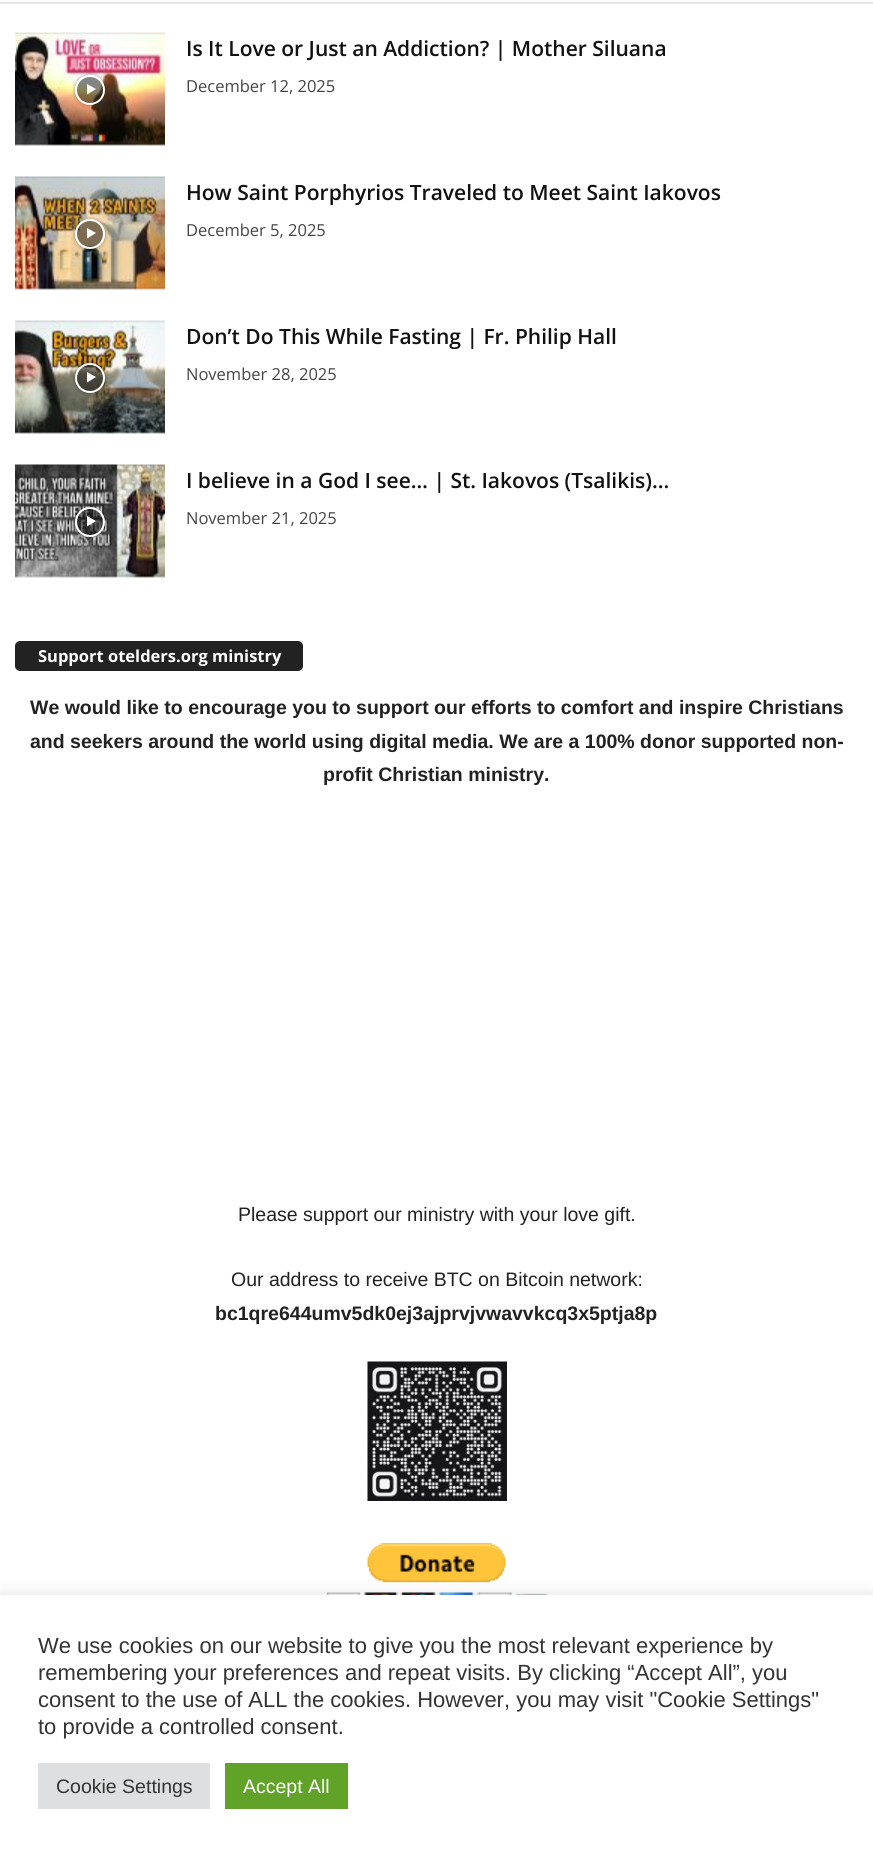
#include <cairo.h>
#include <math.h>
#include <stddef.h>

static cairo_t *ctx;

static void use_color(int r, int g, int b) {
    cairo_set_source_rgb(ctx, r / 255.0, g / 255.0, b / 255.0);
}

static void round_rect(double x, double y, double w, double h, double r) {
    cairo_new_sub_path(ctx);
    cairo_arc(ctx, x + w - r, y + h - r, r, 0, M_PI / 2);
    cairo_arc(ctx, x + r, y + h - r, r, M_PI / 2, M_PI);
    cairo_arc(ctx, x + r, y + r, r, M_PI, 1.5 * M_PI);
    cairo_arc(ctx, x + w - r, y + r, r, 1.5 * M_PI, 2 * M_PI);
    cairo_close_path(ctx);
}

static void shadow(double x, double y, double w, double h, double r, double blur, double alpha) {
    cairo_push_group_with_content(ctx, CAIRO_CONTENT_ALPHA);
    cairo_set_operator(ctx, CAIRO_OPERATOR_SOURCE);
    for (int i = 15; i >= -15 && fmin(w, h) + blur * i / 3 > 0; i -= 2) {
        double e = blur * i / 6;
        cairo_set_source_rgba(ctx, 0, 0, 0, alpha * erfc((i - 1) / 8.5) / 2);
        round_rect(x - e, y - e, w + 2 * e, h + 2 * e, fmax(0, fmin(r + e + blur * .6, fmin(w, h) / 2 + e)));
        cairo_fill(ctx);
    }
    cairo_pattern_t *soft = cairo_pop_group(ctx);
    cairo_mask(ctx, soft);
    cairo_pattern_destroy(soft);
}

static void picture(const char *path, double x, double y, double w, double h) {
    cairo_surface_t *image = cairo_image_surface_create_from_png(path);
    cairo_save(ctx);
    cairo_set_source_surface(ctx, image, x, y);
    cairo_rectangle(ctx, x, y, w, h);
    cairo_fill(ctx);
    cairo_restore(ctx);
    cairo_surface_destroy(image);
}

int main(void) {
    cairo_surface_t *surface = cairo_image_surface_create(CAIRO_FORMAT_RGB24, 873, 1854);
    ctx = cairo_create(surface);
    cairo_font_options_t *options = cairo_font_options_create();
    cairo_font_options_set_hint_metrics(options, CAIRO_HINT_METRICS_OFF);
    cairo_font_options_set_hint_style(options, CAIRO_HINT_STYLE_NONE);
    cairo_set_font_options(ctx, options);
    cairo_set_miter_limit(ctx, 4);
    use_color(255, 255, 255);
    cairo_paint(ctx);
    use_color(252, 252, 252);
    cairo_rectangle(ctx, 0, 0, 873, 2);
    cairo_fill(ctx);
    use_color(230, 230, 230);
    cairo_rectangle(ctx, 0, 2, 873, 2);
    cairo_fill(ctx);
    picture("img1.png", 15, 32, 150, 114);
    cairo_save(ctx);
    cairo_set_fill_rule(ctx, CAIRO_FILL_RULE_EVEN_ODD);
    cairo_new_path(ctx);
    cairo_move_to(ctx, 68, 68);
    cairo_line_to(ctx, 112, 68);
    cairo_line_to(ctx, 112, 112);
    cairo_line_to(ctx, 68, 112);
    cairo_close_path(ctx);
    cairo_move_to(ctx, 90, 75);
    cairo_curve_to(ctx, 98.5, 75, 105, 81.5, 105, 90);
    cairo_curve_to(ctx, 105, 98.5, 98.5, 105, 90, 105);
    cairo_curve_to(ctx, 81.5, 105, 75, 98.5, 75, 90);
    cairo_curve_to(ctx, 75, 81.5, 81.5, 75, 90, 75);
    cairo_close_path(ctx);
    cairo_clip(ctx);
    use_color(0, 0, 0);
    shadow(75, 75, 30, 30, 15, 2, 0.4);
    cairo_restore(ctx);
    cairo_set_source_rgba(ctx, 0, 0, 0, 0.48);
    cairo_arc(ctx, 90, 90, 14, 0, 2 * M_PI);
    cairo_fill_preserve(ctx);
    use_color(255, 255, 255);
    cairo_stroke(ctx);
    cairo_new_path(ctx);
    cairo_move_to(ctx, 87, 84);
    cairo_line_to(ctx, 87, 94.5);
    cairo_line_to(ctx, 96, 89);
    cairo_close_path(ctx);
    cairo_fill(ctx);
    cairo_select_font_face(ctx, "Open Sans SemiBold", CAIRO_FONT_SLANT_NORMAL, CAIRO_FONT_WEIGHT_NORMAL);
    cairo_set_font_size(ctx, 21);
    use_color(17, 17, 17);
    cairo_move_to(ctx, 186, 56);
    cairo_show_text(ctx, "Is It Love or Just an Addiction? | Mother Siluana");
    cairo_select_font_face(ctx, "Open Sans", CAIRO_FONT_SLANT_NORMAL, CAIRO_FONT_WEIGHT_NORMAL);
    cairo_set_font_size(ctx, 16.5);
    use_color(68, 68, 68);
    cairo_move_to(ctx, 186, 92);
    cairo_show_text(ctx, "December 12, 2025");
    picture("img2.png", 15, 176, 150, 114);
    cairo_save(ctx);
    cairo_set_fill_rule(ctx, CAIRO_FILL_RULE_EVEN_ODD);
    cairo_new_path(ctx);
    cairo_move_to(ctx, 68, 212);
    cairo_line_to(ctx, 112, 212);
    cairo_line_to(ctx, 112, 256);
    cairo_line_to(ctx, 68, 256);
    cairo_close_path(ctx);
    cairo_move_to(ctx, 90, 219);
    cairo_curve_to(ctx, 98.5, 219, 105, 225.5, 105, 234);
    cairo_curve_to(ctx, 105, 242.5, 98.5, 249, 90, 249);
    cairo_curve_to(ctx, 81.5, 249, 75, 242.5, 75, 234);
    cairo_curve_to(ctx, 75, 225.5, 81.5, 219, 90, 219);
    cairo_close_path(ctx);
    cairo_clip(ctx);
    use_color(0, 0, 0);
    shadow(75, 219, 30, 30, 15, 2, 0.4);
    cairo_restore(ctx);
    cairo_set_source_rgba(ctx, 0, 0, 0, 0.48);
    cairo_arc(ctx, 90, 234, 14, 0, 2 * M_PI);
    cairo_fill_preserve(ctx);
    use_color(255, 255, 255);
    cairo_stroke(ctx);
    cairo_new_path(ctx);
    cairo_move_to(ctx, 87, 228);
    cairo_line_to(ctx, 87, 238.5);
    cairo_line_to(ctx, 96, 233);
    cairo_close_path(ctx);
    cairo_fill(ctx);
    cairo_select_font_face(ctx, "Open Sans SemiBold", CAIRO_FONT_SLANT_NORMAL, CAIRO_FONT_WEIGHT_NORMAL);
    cairo_set_font_size(ctx, 21);
    use_color(17, 17, 17);
    cairo_move_to(ctx, 186, 200);
    cairo_show_text(ctx, "How Saint Porphyrios Traveled to Meet Saint Iakovos");
    cairo_select_font_face(ctx, "Open Sans", CAIRO_FONT_SLANT_NORMAL, CAIRO_FONT_WEIGHT_NORMAL);
    cairo_set_font_size(ctx, 16.5);
    use_color(68, 68, 68);
    cairo_move_to(ctx, 186, 236);
    cairo_show_text(ctx, "December 5, 2025");
    picture("img3.png", 15, 320, 150, 114);
    cairo_save(ctx);
    cairo_set_fill_rule(ctx, CAIRO_FILL_RULE_EVEN_ODD);
    cairo_new_path(ctx);
    cairo_move_to(ctx, 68, 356);
    cairo_line_to(ctx, 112, 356);
    cairo_line_to(ctx, 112, 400);
    cairo_line_to(ctx, 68, 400);
    cairo_close_path(ctx);
    cairo_move_to(ctx, 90, 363);
    cairo_curve_to(ctx, 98.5, 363, 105, 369.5, 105, 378);
    cairo_curve_to(ctx, 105, 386.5, 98.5, 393, 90, 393);
    cairo_curve_to(ctx, 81.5, 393, 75, 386.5, 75, 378);
    cairo_curve_to(ctx, 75, 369.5, 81.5, 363, 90, 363);
    cairo_close_path(ctx);
    cairo_clip(ctx);
    use_color(0, 0, 0);
    shadow(75, 363, 30, 30, 15, 2, 0.4);
    cairo_restore(ctx);
    cairo_set_source_rgba(ctx, 0, 0, 0, 0.48);
    cairo_arc(ctx, 90, 378, 14, 0, 2 * M_PI);
    cairo_fill_preserve(ctx);
    use_color(255, 255, 255);
    cairo_stroke(ctx);
    cairo_new_path(ctx);
    cairo_move_to(ctx, 87, 372);
    cairo_line_to(ctx, 87, 382.5);
    cairo_line_to(ctx, 96, 377);
    cairo_close_path(ctx);
    cairo_fill(ctx);
    cairo_select_font_face(ctx, "Open Sans SemiBold", CAIRO_FONT_SLANT_NORMAL, CAIRO_FONT_WEIGHT_NORMAL);
    cairo_set_font_size(ctx, 21);
    use_color(17, 17, 17);
    cairo_move_to(ctx, 186, 344);
    cairo_show_text(ctx, "Don’t Do This While Fasting | Fr. Philip Hall");
    cairo_select_font_face(ctx, "Open Sans", CAIRO_FONT_SLANT_NORMAL, CAIRO_FONT_WEIGHT_NORMAL);
    cairo_set_font_size(ctx, 16.5);
    use_color(68, 68, 68);
    cairo_move_to(ctx, 186, 380);
    cairo_show_text(ctx, "November 28, 2025");
    picture("img4.png", 15, 464, 150, 114);
    cairo_save(ctx);
    cairo_set_fill_rule(ctx, CAIRO_FILL_RULE_EVEN_ODD);
    cairo_new_path(ctx);
    cairo_move_to(ctx, 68, 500);
    cairo_line_to(ctx, 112, 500);
    cairo_line_to(ctx, 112, 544);
    cairo_line_to(ctx, 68, 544);
    cairo_close_path(ctx);
    cairo_move_to(ctx, 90, 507);
    cairo_curve_to(ctx, 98.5, 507, 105, 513.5, 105, 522);
    cairo_curve_to(ctx, 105, 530.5, 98.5, 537, 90, 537);
    cairo_curve_to(ctx, 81.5, 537, 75, 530.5, 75, 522);
    cairo_curve_to(ctx, 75, 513.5, 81.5, 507, 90, 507);
    cairo_close_path(ctx);
    cairo_clip(ctx);
    use_color(0, 0, 0);
    shadow(75, 507, 30, 30, 15, 2, 0.4);
    cairo_restore(ctx);
    cairo_set_source_rgba(ctx, 0, 0, 0, 0.48);
    cairo_arc(ctx, 90, 522, 14, 0, 2 * M_PI);
    cairo_fill_preserve(ctx);
    use_color(255, 255, 255);
    cairo_stroke(ctx);
    cairo_new_path(ctx);
    cairo_move_to(ctx, 87, 516);
    cairo_line_to(ctx, 87, 526.5);
    cairo_line_to(ctx, 96, 521);
    cairo_close_path(ctx);
    cairo_fill(ctx);
    cairo_select_font_face(ctx, "Open Sans SemiBold", CAIRO_FONT_SLANT_NORMAL, CAIRO_FONT_WEIGHT_NORMAL);
    cairo_set_font_size(ctx, 21);
    use_color(17, 17, 17);
    cairo_move_to(ctx, 186, 488);
    cairo_show_text(ctx, "I believe in a God I see… | St. Iakovos (Tsalikis)...");
    cairo_select_font_face(ctx, "Open Sans", CAIRO_FONT_SLANT_NORMAL, CAIRO_FONT_WEIGHT_NORMAL);
    cairo_set_font_size(ctx, 16.5);
    use_color(68, 68, 68);
    cairo_move_to(ctx, 186, 524);
    cairo_show_text(ctx, "November 21, 2025");
    use_color(34, 34, 34);
    round_rect(15, 641, 288, 30, 5);
    cairo_fill(ctx);
    cairo_select_font_face(ctx, "Open Sans", CAIRO_FONT_SLANT_NORMAL, CAIRO_FONT_WEIGHT_BOLD);
    use_color(255, 255, 255);
    cairo_move_to(ctx, 38, 662);
    cairo_show_text(ctx, "Support otelders.org ministry");
    cairo_select_font_face(ctx, "Liberation Sans", CAIRO_FONT_SLANT_NORMAL, CAIRO_FONT_WEIGHT_BOLD);
    cairo_set_font_size(ctx, 19.5);
    use_color(34, 34, 34);
    cairo_move_to(ctx, 30, 714);
    cairo_show_text(ctx, "We would like to encourage you to support our efforts to comfort and inspire Christians");
    cairo_move_to(ctx, 30, 748);
    cairo_show_text(ctx, "and seekers around the world using digital media. We are a 100% donor supported non-");
    cairo_move_to(ctx, 323, 781);
    cairo_show_text(ctx, "profit Christian ministry.");
    cairo_select_font_face(ctx, "Liberation Sans", CAIRO_FONT_SLANT_NORMAL, CAIRO_FONT_WEIGHT_NORMAL);
    cairo_move_to(ctx, 238, 1221);
    cairo_show_text(ctx, "Please support our ministry with your love gift.");
    cairo_move_to(ctx, 231, 1286);
    cairo_show_text(ctx, "Our address to receive BTC on Bitcoin network:");
    cairo_select_font_face(ctx, "Liberation Sans", CAIRO_FONT_SLANT_NORMAL, CAIRO_FONT_WEIGHT_BOLD);
    cairo_move_to(ctx, 215, 1320);
    cairo_show_text(ctx, "bc1qre644umv5dk0ej3ajprvjvwavvkcq3x5ptja8p");
    picture("img5.png", 367, 1361, 140, 140);
    picture("img6.png", 327, 1543, 221, 52);
    use_color(172, 171, 171);
    shadow(0, 1593, 873, 260, 0, 7.5, 0.3);
    use_color(255, 255, 255);
    cairo_rectangle(ctx, 0, 1595, 873, 259);
    cairo_fill(ctx);
    cairo_select_font_face(ctx, "Liberation Sans", CAIRO_FONT_SLANT_NORMAL, CAIRO_FONT_WEIGHT_NORMAL);
    cairo_set_font_size(ctx, 22);
    use_color(51, 51, 51);
    cairo_move_to(ctx, 38, 1653);
    cairo_show_text(ctx, "We use cookies on our website to give you the most relevant experience by");
    cairo_move_to(ctx, 38, 1680);
    cairo_show_text(ctx, "remembering your preferences and repeat visits. By clicking “Accept All”, you");
    cairo_move_to(ctx, 38, 1707);
    cairo_show_text(ctx, "consent to the use of ALL the cookies. However, you may visit \"Cookie Settings\"");
    cairo_move_to(ctx, 38, 1734);
    cairo_show_text(ctx, "to provide a controlled consent.");
    use_color(222, 223, 224);
    cairo_rectangle(ctx, 38, 1763, 172, 46);
    cairo_fill(ctx);
    cairo_set_font_size(ctx, 19.5);
    use_color(51, 51, 51);
    cairo_move_to(ctx, 56, 1793);
    cairo_show_text(ctx, "Cookie Settings");
    use_color(97, 162, 41);
    cairo_rectangle(ctx, 225, 1763, 123, 46);
    cairo_fill(ctx);
    use_color(255, 255, 255);
    cairo_move_to(ctx, 243, 1793);
    cairo_show_text(ctx, "Accept All");
    cairo_surface_write_to_png(surface, "result.png");
    cairo_font_options_destroy(options);
    cairo_destroy(ctx);
    cairo_surface_destroy(surface);
    return 0;
}
